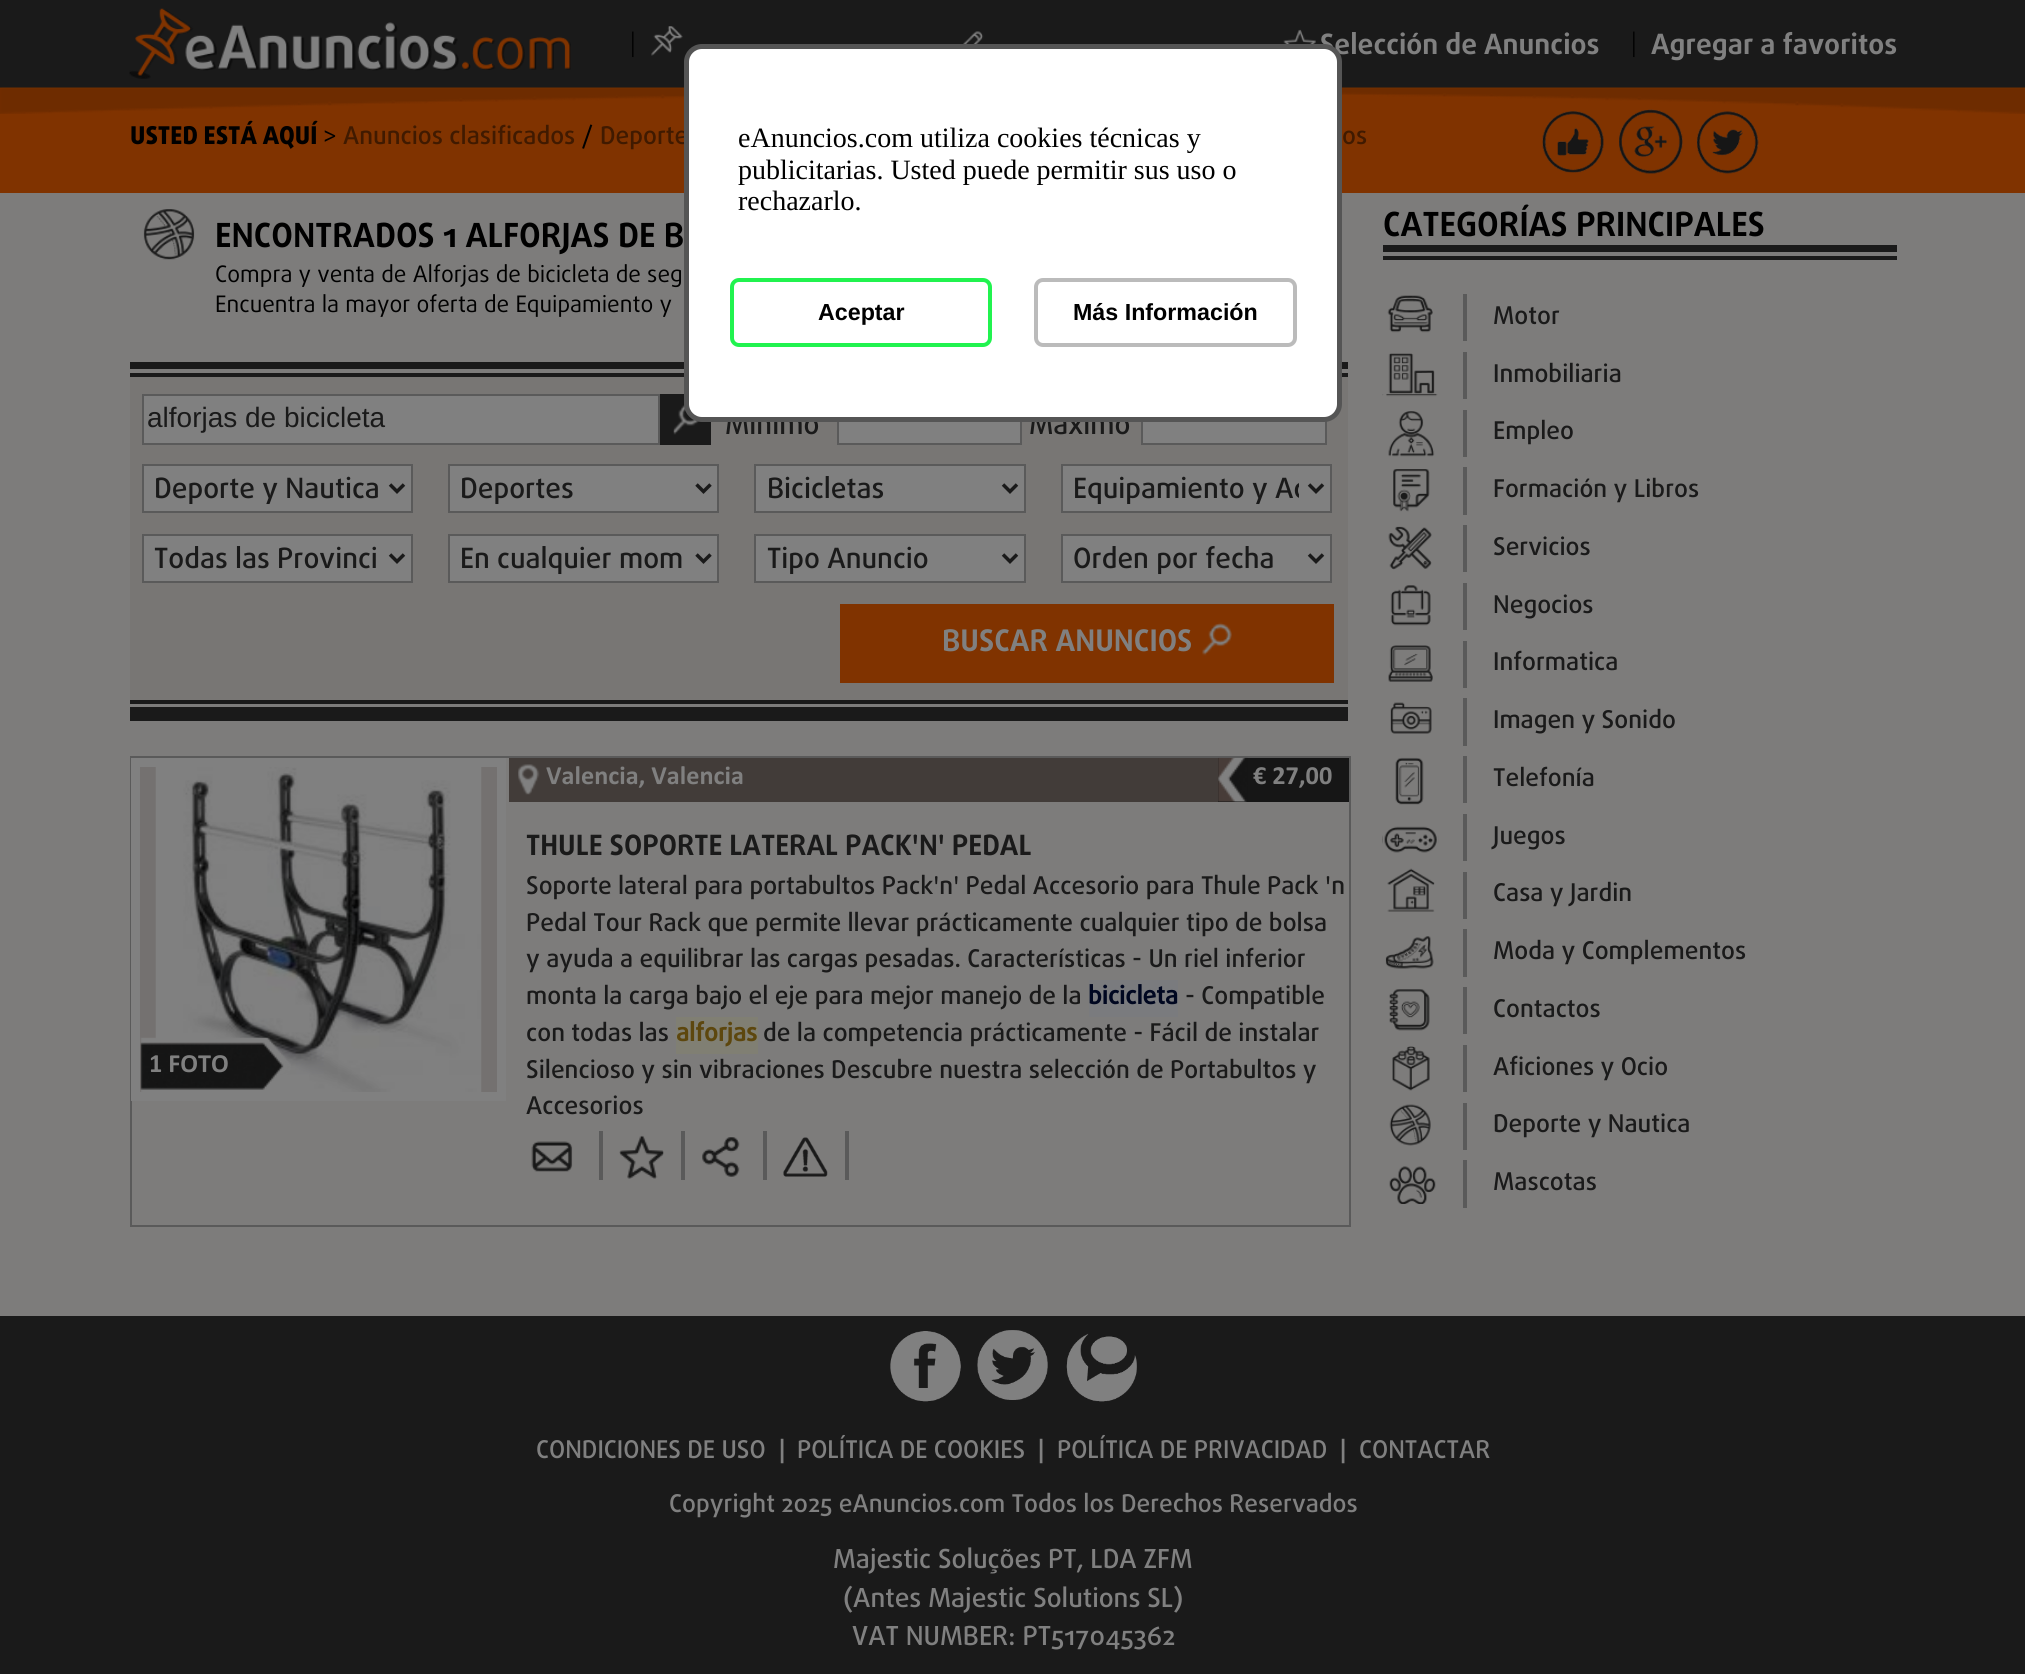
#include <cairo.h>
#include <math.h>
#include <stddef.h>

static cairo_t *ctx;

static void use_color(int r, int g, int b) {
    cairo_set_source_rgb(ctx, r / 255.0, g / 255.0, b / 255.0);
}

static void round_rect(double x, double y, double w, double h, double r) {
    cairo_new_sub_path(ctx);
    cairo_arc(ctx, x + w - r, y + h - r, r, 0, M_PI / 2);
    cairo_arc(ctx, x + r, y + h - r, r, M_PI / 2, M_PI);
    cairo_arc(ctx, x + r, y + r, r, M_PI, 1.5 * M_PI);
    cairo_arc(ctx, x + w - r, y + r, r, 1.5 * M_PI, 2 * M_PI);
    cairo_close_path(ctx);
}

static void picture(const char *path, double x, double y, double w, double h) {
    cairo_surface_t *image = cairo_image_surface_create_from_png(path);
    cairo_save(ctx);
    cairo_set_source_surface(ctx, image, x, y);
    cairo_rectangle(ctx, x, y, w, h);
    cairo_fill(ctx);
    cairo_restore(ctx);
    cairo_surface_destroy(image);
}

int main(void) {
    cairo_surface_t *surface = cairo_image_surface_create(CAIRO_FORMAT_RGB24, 2025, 1674);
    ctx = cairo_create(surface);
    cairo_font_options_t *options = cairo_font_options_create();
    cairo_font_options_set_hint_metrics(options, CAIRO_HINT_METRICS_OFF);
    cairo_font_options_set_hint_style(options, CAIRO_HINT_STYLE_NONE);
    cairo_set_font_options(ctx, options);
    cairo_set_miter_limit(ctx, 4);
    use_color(125, 124, 123);
    cairo_paint(ctx);
    use_color(26, 26, 26);
    cairo_rectangle(ctx, 0, 0, 2025, 88);
    cairo_fill(ctx);
    picture("img1.png", 129, 8, 442, 71);
    cairo_select_font_face(ctx, "Liberation Serif", CAIRO_FONT_SLANT_NORMAL, CAIRO_FONT_WEIGHT_NORMAL);
    cairo_set_font_size(ctx, 28);
    use_color(0, 0, 0);
    cairo_move_to(ctx, 630, 51);
    cairo_show_text(ctx, "|");
    picture("img2.png", 651, 26, 32, 30);
    picture("img3.png", 963, 31, 21, 13);
    picture("img4.png", 1283, 29, 33, 15);
    cairo_select_font_face(ctx, "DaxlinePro", CAIRO_FONT_SLANT_NORMAL, CAIRO_FONT_WEIGHT_BOLD);
    use_color(128, 128, 128);
    cairo_move_to(ctx, 1320, 54);
    cairo_show_text(ctx, "Selección de Anuncios");
    cairo_select_font_face(ctx, "Liberation Serif", CAIRO_FONT_SLANT_NORMAL, CAIRO_FONT_WEIGHT_NORMAL);
    use_color(0, 0, 0);
    cairo_move_to(ctx, 1631, 51);
    cairo_show_text(ctx, "|");
    cairo_select_font_face(ctx, "DaxlinePro", CAIRO_FONT_SLANT_NORMAL, CAIRO_FONT_WEIGHT_BOLD);
    use_color(128, 128, 128);
    cairo_move_to(ctx, 1651, 54);
    cairo_show_text(ctx, "Agregar a favoritos");
    use_color(128, 51, 0);
    cairo_rectangle(ctx, 0, 88, 2025, 105);
    cairo_fill(ctx);
    picture("img5.png", 0, 87, 2025, 27);
    cairo_select_font_face(ctx, "DaxlinePro ExtraBold", CAIRO_FONT_SLANT_NORMAL, CAIRO_FONT_WEIGHT_NORMAL);
    cairo_set_font_size(ctx, 24.5);
    use_color(0, 0, 0);
    cairo_move_to(ctx, 130, 144);
    cairo_show_text(ctx, "USTED ESTÁ AQUÍ");
    cairo_select_font_face(ctx, "DaxlinePro", CAIRO_FONT_SLANT_NORMAL, CAIRO_FONT_WEIGHT_NORMAL);
    cairo_move_to(ctx, 323, 144);
    cairo_show_text(ctx, ">");
    cairo_select_font_face(ctx, "DaxlinePro Medium", CAIRO_FONT_SLANT_NORMAL, CAIRO_FONT_WEIGHT_NORMAL);
    use_color(64, 26, 0);
    cairo_move_to(ctx, 343, 144);
    cairo_show_text(ctx, "Anuncios clasificados");
    cairo_select_font_face(ctx, "DaxlinePro", CAIRO_FONT_SLANT_NORMAL, CAIRO_FONT_WEIGHT_NORMAL);
    use_color(0, 0, 0);
    cairo_move_to(ctx, 582, 144);
    cairo_show_text(ctx, "/");
    cairo_select_font_face(ctx, "DaxlinePro Medium", CAIRO_FONT_SLANT_NORMAL, CAIRO_FONT_WEIGHT_NORMAL);
    use_color(64, 26, 0);
    cairo_move_to(ctx, 600, 144);
    cairo_show_text(ctx, "Deporte");
    cairo_move_to(ctx, 1342, 144);
    cairo_show_text(ctx, "os");
    picture("img6.png", 1542, 111, 62, 62);
    picture("img7.png", 1619, 109, 64, 65);
    picture("img8.png", 1697, 111, 62, 63);
    use_color(26, 26, 26);
    cairo_rectangle(ctx, 0, 1316, 2025, 358);
    cairo_fill(ctx);
    cairo_rectangle(ctx, 130, 362, 1218, 7);
    cairo_fill(ctx);
    use_color(120, 118, 116);
    cairo_rectangle(ctx, 130, 377, 1218, 323);
    cairo_fill(ctx);
    use_color(26, 26, 26);
    cairo_rectangle(ctx, 130, 373, 1218, 4);
    cairo_fill(ctx);
    cairo_rectangle(ctx, 660, 394, 51, 51);
    cairo_fill(ctx);
    picture("img13.png", 673, 404, 26, 31);
    cairo_set_font_size(ctx, 28);
    cairo_move_to(ctx, 725, 434);
    cairo_show_text(ctx, "Mínimo");
    use_color(128, 128, 128);
    cairo_rectangle(ctx, 839, 422, 181, 21);
    cairo_fill(ctx);
    cairo_rectangle(ctx, 838, 395, 183, 49);
    use_color(90, 90, 90);
    cairo_stroke(ctx);
    use_color(26, 26, 26);
    cairo_move_to(ctx, 1029, 434);
    cairo_show_text(ctx, "Máximo");
    use_color(128, 128, 128);
    cairo_rectangle(ctx, 1143, 421, 182, 22);
    cairo_fill(ctx);
    cairo_rectangle(ctx, 1142, 395, 184, 49);
    use_color(90, 90, 90);
    cairo_stroke(ctx);
    use_color(255, 255, 255);
    round_rect(686.5, 46.5, 653, 373, 15.5);
    cairo_fill_preserve(ctx);
    use_color(85, 85, 85);
    cairo_set_line_width(ctx, 5);
    cairo_stroke(ctx);
    cairo_select_font_face(ctx, "Liberation Serif", CAIRO_FONT_SLANT_NORMAL, CAIRO_FONT_WEIGHT_NORMAL);
    use_color(0, 0, 0);
    cairo_move_to(ctx, 738, 147);
    cairo_show_text(ctx, "eAnuncios.com utiliza cookies técnicas y");
    cairo_move_to(ctx, 738, 179);
    cairo_show_text(ctx, "publicitarias. Usted puede permitir sus uso o");
    cairo_move_to(ctx, 738, 210);
    cairo_show_text(ctx, "rechazarlo.");
    round_rect(732, 280, 258, 65, 7);
    use_color(33, 243, 79);
    cairo_set_line_width(ctx, 4);
    cairo_stroke(ctx);
    cairo_select_font_face(ctx, "Liberation Sans", CAIRO_FONT_SLANT_NORMAL, CAIRO_FONT_WEIGHT_BOLD);
    cairo_set_font_size(ctx, 23.25);
    use_color(0, 0, 0);
    cairo_move_to(ctx, 818, 320);
    cairo_show_text(ctx, "Aceptar");
    round_rect(1036, 280, 259, 65, 7);
    use_color(187, 187, 187);
    cairo_stroke(ctx);
    use_color(0, 0, 0);
    cairo_move_to(ctx, 1073, 320);
    cairo_show_text(ctx, "Más Información");
    picture("img9.png", 890, 1331, 71, 71);
    picture("img10.png", 977, 1330, 71, 70);
    picture("img11.png", 1066, 1333, 71, 69);
    cairo_select_font_face(ctx, "DaxlinePro Medium", CAIRO_FONT_SLANT_NORMAL, CAIRO_FONT_WEIGHT_NORMAL);
    cairo_set_font_size(ctx, 24.5);
    use_color(128, 128, 128);
    cairo_move_to(ctx, 536, 1458);
    cairo_show_text(ctx, "CONDICIONES DE USO");
    cairo_move_to(ctx, 779, 1458);
    cairo_show_text(ctx, "|");
    cairo_move_to(ctx, 797, 1458);
    cairo_show_text(ctx, "POLÍTICA DE COOKIES");
    cairo_move_to(ctx, 1038, 1458);
    cairo_show_text(ctx, "|");
    cairo_move_to(ctx, 1057, 1458);
    cairo_show_text(ctx, "POLÍTICA DE PRIVACIDAD");
    cairo_move_to(ctx, 1340, 1458);
    cairo_show_text(ctx, "|");
    cairo_move_to(ctx, 1359, 1458);
    cairo_show_text(ctx, "CONTACTAR");
    cairo_move_to(ctx, 669, 1512);
    cairo_show_text(ctx, "Copyright 2025 eAnuncios.com Todos los Derechos Reservados");
    cairo_set_font_size(ctx, 26.25);
    cairo_move_to(ctx, 833, 1568);
    cairo_show_text(ctx, "Majestic Soluções PT, LDA ZFM");
    cairo_move_to(ctx, 843, 1607);
    cairo_show_text(ctx, "(Antes Majestic Solutions SL)");
    cairo_move_to(ctx, 852, 1645);
    cairo_show_text(ctx, "VAT NUMBER: PT517045362");
    picture("img12.png", 143, 209, 52, 51);
    cairo_select_font_face(ctx, "DaxlinePro", CAIRO_FONT_SLANT_NORMAL, CAIRO_FONT_WEIGHT_BOLD);
    cairo_set_font_size(ctx, 33.25);
    use_color(0, 0, 0);
    cairo_move_to(ctx, 215, 247);
    cairo_show_text(ctx, "ENCONTRADOS 1 ALFORJAS DE B");
    cairo_select_font_face(ctx, "DaxlinePro", CAIRO_FONT_SLANT_NORMAL, CAIRO_FONT_WEIGHT_NORMAL);
    cairo_set_font_size(ctx, 22.75);
    cairo_move_to(ctx, 215, 282);
    cairo_show_text(ctx, "Compra y venta de Alforjas de bicicleta de seg");
    cairo_move_to(ctx, 215, 312);
    cairo_show_text(ctx, "Encuentra la mayor oferta de Equipamiento y");
    use_color(26, 26, 26);
    cairo_rectangle(ctx, 130, 700, 1218, 4);
    cairo_fill(ctx);
    use_color(128, 128, 128);
    cairo_rectangle(ctx, 143, 395, 516, 49);
    cairo_fill_preserve(ctx);
    use_color(90, 90, 90);
    cairo_set_line_width(ctx, 2);
    cairo_stroke(ctx);
    cairo_select_font_face(ctx, "Liberation Sans", CAIRO_FONT_SLANT_NORMAL, CAIRO_FONT_WEIGHT_NORMAL);
    cairo_set_font_size(ctx, 28);
    use_color(26, 26, 26);
    cairo_move_to(ctx, 147, 427);
    cairo_show_text(ctx, "alforjas de bicicleta");
    use_color(128, 128, 128);
    cairo_rectangle(ctx, 143, 465, 269, 47);
    cairo_fill_preserve(ctx);
    use_color(90, 90, 90);
    cairo_stroke(ctx);
    cairo_new_path(ctx);
    cairo_move_to(ctx, 390, 484.5);
    cairo_line_to(ctx, 397, 491.5);
    cairo_line_to(ctx, 404, 484.5);
    use_color(26, 26, 26);
    cairo_set_line_width(ctx, 3.5);
    cairo_stroke(ctx);
    cairo_select_font_face(ctx, "DaxlinePro Medium", CAIRO_FONT_SLANT_NORMAL, CAIRO_FONT_WEIGHT_NORMAL);
    cairo_move_to(ctx, 154, 498);
    cairo_show_text(ctx, "Deporte y Nautica");
    use_color(128, 128, 128);
    cairo_rectangle(ctx, 449, 465, 269, 47);
    cairo_fill_preserve(ctx);
    use_color(90, 90, 90);
    cairo_set_line_width(ctx, 2);
    cairo_stroke(ctx);
    cairo_new_path(ctx);
    cairo_move_to(ctx, 696.5, 484.5);
    cairo_line_to(ctx, 703.5, 491.5);
    cairo_line_to(ctx, 710.5, 484.5);
    use_color(26, 26, 26);
    cairo_set_line_width(ctx, 3.5);
    cairo_stroke(ctx);
    cairo_move_to(ctx, 460, 498);
    cairo_show_text(ctx, "Deportes");
    use_color(128, 128, 128);
    cairo_rectangle(ctx, 755, 465, 270, 47);
    cairo_fill_preserve(ctx);
    use_color(90, 90, 90);
    cairo_set_line_width(ctx, 2);
    cairo_stroke(ctx);
    cairo_new_path(ctx);
    cairo_move_to(ctx, 1003, 484.5);
    cairo_line_to(ctx, 1010, 491.5);
    cairo_line_to(ctx, 1017, 484.5);
    use_color(26, 26, 26);
    cairo_set_line_width(ctx, 3.5);
    cairo_stroke(ctx);
    cairo_move_to(ctx, 767, 498);
    cairo_show_text(ctx, "Bicicletas");
    use_color(128, 128, 128);
    cairo_rectangle(ctx, 1062, 465, 269, 47);
    cairo_fill_preserve(ctx);
    use_color(90, 90, 90);
    cairo_set_line_width(ctx, 2);
    cairo_stroke(ctx);
    cairo_new_path(ctx);
    cairo_move_to(ctx, 1309, 484.5);
    cairo_line_to(ctx, 1316, 491.5);
    cairo_line_to(ctx, 1323, 484.5);
    use_color(26, 26, 26);
    cairo_set_line_width(ctx, 3.5);
    cairo_stroke(ctx);
    cairo_save(ctx);
    cairo_rectangle(ctx, 1073, 469, 226, 46);
    cairo_clip(ctx);
    cairo_move_to(ctx, 1073, 498);
    cairo_show_text(ctx, "Equipamiento y Ac");
    cairo_restore(ctx);
    use_color(128, 128, 128);
    cairo_rectangle(ctx, 143, 535, 269, 47);
    cairo_fill_preserve(ctx);
    use_color(90, 90, 90);
    cairo_set_line_width(ctx, 2);
    cairo_stroke(ctx);
    cairo_new_path(ctx);
    cairo_move_to(ctx, 390, 554.5);
    cairo_line_to(ctx, 397, 561.5);
    cairo_line_to(ctx, 404, 554.5);
    use_color(26, 26, 26);
    cairo_set_line_width(ctx, 3.5);
    cairo_stroke(ctx);
    cairo_move_to(ctx, 154, 568);
    cairo_show_text(ctx, "Todas las Provinci");
    use_color(128, 128, 128);
    cairo_rectangle(ctx, 449, 535, 269, 47);
    cairo_fill_preserve(ctx);
    use_color(90, 90, 90);
    cairo_set_line_width(ctx, 2);
    cairo_stroke(ctx);
    cairo_new_path(ctx);
    cairo_move_to(ctx, 696.5, 554.5);
    cairo_line_to(ctx, 703.5, 561.5);
    cairo_line_to(ctx, 710.5, 554.5);
    use_color(26, 26, 26);
    cairo_set_line_width(ctx, 3.5);
    cairo_stroke(ctx);
    cairo_move_to(ctx, 460, 568);
    cairo_show_text(ctx, "En cualquier mom");
    use_color(128, 128, 128);
    cairo_rectangle(ctx, 755, 535, 270, 47);
    cairo_fill_preserve(ctx);
    use_color(90, 90, 90);
    cairo_set_line_width(ctx, 2);
    cairo_stroke(ctx);
    cairo_new_path(ctx);
    cairo_move_to(ctx, 1003, 554.5);
    cairo_line_to(ctx, 1010, 561.5);
    cairo_line_to(ctx, 1017, 554.5);
    use_color(26, 26, 26);
    cairo_set_line_width(ctx, 3.5);
    cairo_stroke(ctx);
    cairo_move_to(ctx, 767, 568);
    cairo_show_text(ctx, "Tipo Anuncio");
    use_color(128, 128, 128);
    cairo_rectangle(ctx, 1062, 535, 269, 47);
    cairo_fill_preserve(ctx);
    use_color(90, 90, 90);
    cairo_set_line_width(ctx, 2);
    cairo_stroke(ctx);
    cairo_new_path(ctx);
    cairo_move_to(ctx, 1309, 554.5);
    cairo_line_to(ctx, 1316, 561.5);
    cairo_line_to(ctx, 1323, 554.5);
    use_color(26, 26, 26);
    cairo_set_line_width(ctx, 3.5);
    cairo_stroke(ctx);
    cairo_move_to(ctx, 1073, 568);
    cairo_show_text(ctx, "Orden por fecha");
    use_color(128, 51, 0);
    cairo_rectangle(ctx, 840, 604, 494, 79);
    cairo_fill(ctx);
    cairo_select_font_face(ctx, "DaxlinePro", CAIRO_FONT_SLANT_NORMAL, CAIRO_FONT_WEIGHT_BOLD);
    cairo_set_font_size(ctx, 29.75);
    use_color(128, 128, 128);
    cairo_move_to(ctx, 942, 651);
    cairo_show_text(ctx, "BUSCAR ANUNCIOS");
    picture("img14.png", 1202, 622, 30, 34);
    use_color(26, 26, 26);
    cairo_rectangle(ctx, 130, 707, 1218, 14);
    cairo_fill(ctx);
    cairo_rectangle(ctx, 131, 757, 1219, 469);
    use_color(90, 90, 90);
    cairo_set_line_width(ctx, 2);
    cairo_stroke(ctx);
    use_color(116, 113, 112);
    cairo_rectangle(ctx, 135.5, 762.5, 366, 334);
    cairo_fill_preserve(ctx);
    use_color(128, 128, 128);
    cairo_set_line_width(ctx, 9);
    cairo_stroke(ctx);
    picture("img15.png", 155, 767, 327, 325);
    use_color(66, 60, 57);
    cairo_rectangle(ctx, 509, 758, 709, 44);
    cairo_fill(ctx);
    picture("img16.png", 518, 764, 22, 31);
    cairo_select_font_face(ctx, "Calibri", CAIRO_FONT_SLANT_NORMAL, CAIRO_FONT_WEIGHT_BOLD);
    cairo_set_font_size(ctx, 26.25);
    use_color(128, 128, 128);
    cairo_move_to(ctx, 546, 784);
    cairo_show_text(ctx, "Valencia, Valencia");
    use_color(22, 22, 22);
    cairo_rectangle(ctx, 1218, 758, 131, 44);
    cairo_fill(ctx);
    picture("img17.png", 1218, 757, 30, 45);
    use_color(128, 128, 128);
    cairo_move_to(ctx, 1253, 784);
    cairo_show_text(ctx, "€ 27,00");
    cairo_select_font_face(ctx, "DaxlinePro", CAIRO_FONT_SLANT_NORMAL, CAIRO_FONT_WEIGHT_BOLD);
    cairo_set_font_size(ctx, 28);
    use_color(26, 26, 26);
    cairo_move_to(ctx, 526, 855);
    cairo_show_text(ctx, "THULE SOPORTE LATERAL PACK'N' PEDAL");
    cairo_select_font_face(ctx, "DaxlinePro Medium", CAIRO_FONT_SLANT_NORMAL, CAIRO_FONT_WEIGHT_NORMAL);
    cairo_set_font_size(ctx, 24.5);
    cairo_move_to(ctx, 526, 894);
    cairo_show_text(ctx, "Soporte lateral para portabultos Pack'n' Pedal Accesorio para Thule Pack 'n");
    cairo_move_to(ctx, 526, 931);
    cairo_show_text(ctx, "Pedal Tour Rack que permite llevar prácticamente cualquier tipo de bolsa");
    cairo_move_to(ctx, 526, 967);
    cairo_show_text(ctx, "y ayuda a equilibrar las cargas pesadas. Características - Un riel inferior");
    cairo_move_to(ctx, 526, 1004);
    cairo_show_text(ctx, "monta la carga bajo el eje para mejor manejo de la");
    use_color(122, 123, 126);
    cairo_rectangle(ctx, 1089, 980, 89, 37);
    cairo_fill(ctx);
    cairo_select_font_face(ctx, "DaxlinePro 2", CAIRO_FONT_SLANT_NORMAL, CAIRO_FONT_WEIGHT_BOLD);
    use_color(0, 7, 32);
    cairo_move_to(ctx, 1088, 1004);
    cairo_show_text(ctx, "bicicleta");
    cairo_select_font_face(ctx, "DaxlinePro Medium", CAIRO_FONT_SLANT_NORMAL, CAIRO_FONT_WEIGHT_NORMAL);
    use_color(26, 26, 26);
    cairo_move_to(ctx, 1185, 1004);
    cairo_show_text(ctx, "- Compatible");
    cairo_move_to(ctx, 526, 1041);
    cairo_show_text(ctx, "con todas las");
    use_color(128, 127, 115);
    cairo_rectangle(ctx, 676, 1017, 82, 37);
    cairo_fill(ctx);
    cairo_select_font_face(ctx, "DaxlinePro 2", CAIRO_FONT_SLANT_NORMAL, CAIRO_FONT_WEIGHT_BOLD);
    use_color(93, 71, 14);
    cairo_move_to(ctx, 676, 1041);
    cairo_show_text(ctx, "alforjas");
    cairo_select_font_face(ctx, "DaxlinePro Medium", CAIRO_FONT_SLANT_NORMAL, CAIRO_FONT_WEIGHT_NORMAL);
    use_color(26, 26, 26);
    cairo_move_to(ctx, 763, 1041);
    cairo_show_text(ctx, "de la competencia prácticamente - Fácil de instalar");
    cairo_move_to(ctx, 526, 1078);
    cairo_show_text(ctx, "Silencioso y sin vibraciones Descubre nuestra selección de Portabultos y");
    cairo_move_to(ctx, 526, 1114);
    cairo_show_text(ctx, "Accesorios");
    use_color(90, 90, 90);
    cairo_rectangle(ctx, 599, 1131, 4, 49);
    cairo_fill(ctx);
    picture("img18.png", 531, 1141, 42, 31);
    cairo_rectangle(ctx, 681, 1131, 4, 49);
    cairo_fill(ctx);
    picture("img19.png", 619, 1135, 45, 44);
    cairo_rectangle(ctx, 763, 1131, 4, 49);
    cairo_fill(ctx);
    picture("img20.png", 702, 1137, 38, 40);
    cairo_rectangle(ctx, 845, 1131, 4, 49);
    cairo_fill(ctx);
    picture("img21.png", 783, 1137, 45, 40);
    picture("img22.png", 140, 1037, 151, 55);
    cairo_select_font_face(ctx, "Calibri", CAIRO_FONT_SLANT_NORMAL, CAIRO_FONT_WEIGHT_BOLD);
    cairo_set_font_size(ctx, 26.25);
    use_color(128, 128, 128);
    cairo_move_to(ctx, 149, 1072);
    cairo_show_text(ctx, "1 FOTO");
    use_color(26, 26, 26);
    cairo_rectangle(ctx, 1383, 256, 514, 4);
    cairo_fill(ctx);
    cairo_rectangle(ctx, 1383, 245, 514, 7);
    cairo_fill(ctx);
    cairo_select_font_face(ctx, "DaxlinePro", CAIRO_FONT_SLANT_NORMAL, CAIRO_FONT_WEIGHT_BOLD);
    cairo_set_font_size(ctx, 33.25);
    use_color(0, 0, 0);
    cairo_move_to(ctx, 1383, 236);
    cairo_show_text(ctx, "CATEGORÍAS PRINCIPALES");
    picture("img23.png", 1387, 295, 46, 38);
    use_color(90, 90, 90);
    cairo_rectangle(ctx, 1463, 294, 4, 47);
    cairo_fill(ctx);
    cairo_select_font_face(ctx, "DaxlinePro Medium", CAIRO_FONT_SLANT_NORMAL, CAIRO_FONT_WEIGHT_NORMAL);
    cairo_set_font_size(ctx, 24.5);
    use_color(26, 26, 26);
    cairo_move_to(ctx, 1493, 324);
    cairo_show_text(ctx, "Motor");
    picture("img24.png", 1382, 353, 56, 44);
    use_color(90, 90, 90);
    cairo_rectangle(ctx, 1463, 352, 4, 47);
    cairo_fill(ctx);
    use_color(26, 26, 26);
    cairo_move_to(ctx, 1493, 382);
    cairo_show_text(ctx, "Inmobiliaria");
    picture("img25.png", 1388, 411, 47, 46);
    use_color(90, 90, 90);
    cairo_rectangle(ctx, 1463, 410, 4, 47);
    cairo_fill(ctx);
    use_color(26, 26, 26);
    cairo_move_to(ctx, 1493, 439);
    cairo_show_text(ctx, "Empleo");
    picture("img26.png", 1393, 469, 37, 43);
    use_color(90, 90, 90);
    cairo_rectangle(ctx, 1463, 467, 4, 48);
    cairo_fill(ctx);
    use_color(26, 26, 26);
    cairo_move_to(ctx, 1493, 497);
    cairo_show_text(ctx, "Formación y Libros");
    picture("img27.png", 1388, 526, 44, 44);
    use_color(90, 90, 90);
    cairo_rectangle(ctx, 1463, 525, 4, 47);
    cairo_fill(ctx);
    use_color(26, 26, 26);
    cairo_move_to(ctx, 1493, 555);
    cairo_show_text(ctx, "Servicios");
    picture("img28.png", 1390, 585, 41, 41);
    use_color(90, 90, 90);
    cairo_rectangle(ctx, 1463, 583, 4, 47);
    cairo_fill(ctx);
    use_color(26, 26, 26);
    cairo_move_to(ctx, 1493, 613);
    cairo_show_text(ctx, "Negocios");
    picture("img29.png", 1388, 645, 45, 37);
    use_color(90, 90, 90);
    cairo_rectangle(ctx, 1463, 641, 4, 47);
    cairo_fill(ctx);
    use_color(26, 26, 26);
    cairo_move_to(ctx, 1493, 670);
    cairo_show_text(ctx, "Informatica");
    picture("img30.png", 1390, 702, 42, 32);
    use_color(90, 90, 90);
    cairo_rectangle(ctx, 1463, 698, 4, 48);
    cairo_fill(ctx);
    use_color(26, 26, 26);
    cairo_move_to(ctx, 1493, 728);
    cairo_show_text(ctx, "Imagen y Sonido");
    picture("img31.png", 1395, 757, 29, 48);
    use_color(90, 90, 90);
    cairo_rectangle(ctx, 1463, 756, 4, 47);
    cairo_fill(ctx);
    use_color(26, 26, 26);
    cairo_move_to(ctx, 1493, 786);
    cairo_show_text(ctx, "Telefonía");
    picture("img32.png", 1382, 826, 57, 27);
    use_color(90, 90, 90);
    cairo_rectangle(ctx, 1463, 814, 4, 47);
    cairo_fill(ctx);
    use_color(26, 26, 26);
    cairo_move_to(ctx, 1493, 844);
    cairo_show_text(ctx, "Juegos");
    picture("img33.png", 1387, 868, 48, 44);
    use_color(90, 90, 90);
    cairo_rectangle(ctx, 1463, 872, 4, 47);
    cairo_fill(ctx);
    use_color(26, 26, 26);
    cairo_move_to(ctx, 1493, 901);
    cairo_show_text(ctx, "Casa y Jardin");
    picture("img34.png", 1385, 936, 49, 33);
    use_color(90, 90, 90);
    cairo_rectangle(ctx, 1463, 929, 4, 48);
    cairo_fill(ctx);
    use_color(26, 26, 26);
    cairo_move_to(ctx, 1493, 959);
    cairo_show_text(ctx, "Moda y Complementos");
    picture("img35.png", 1389, 989, 41, 42);
    use_color(90, 90, 90);
    cairo_rectangle(ctx, 1463, 987, 4, 47);
    cairo_fill(ctx);
    use_color(26, 26, 26);
    cairo_move_to(ctx, 1493, 1017);
    cairo_show_text(ctx, "Contactos");
    picture("img36.png", 1392, 1046, 38, 45);
    use_color(90, 90, 90);
    cairo_rectangle(ctx, 1463, 1045, 4, 47);
    cairo_fill(ctx);
    use_color(26, 26, 26);
    cairo_move_to(ctx, 1493, 1075);
    cairo_show_text(ctx, "Aficiones y Ocio");
    picture("img37.png", 1389, 1104, 42, 42);
    use_color(90, 90, 90);
    cairo_rectangle(ctx, 1463, 1103, 4, 47);
    cairo_fill(ctx);
    use_color(26, 26, 26);
    cairo_move_to(ctx, 1493, 1132);
    cairo_show_text(ctx, "Deporte y Nautica");
    picture("img38.png", 1389, 1166, 47, 38);
    use_color(90, 90, 90);
    cairo_rectangle(ctx, 1463, 1160, 4, 48);
    cairo_fill(ctx);
    use_color(26, 26, 26);
    cairo_move_to(ctx, 1493, 1190);
    cairo_show_text(ctx, "Mascotas");
    cairo_surface_write_to_png(surface, "result.png");
    cairo_font_options_destroy(options);
    cairo_destroy(ctx);
    cairo_surface_destroy(surface);
    return 0;
}
